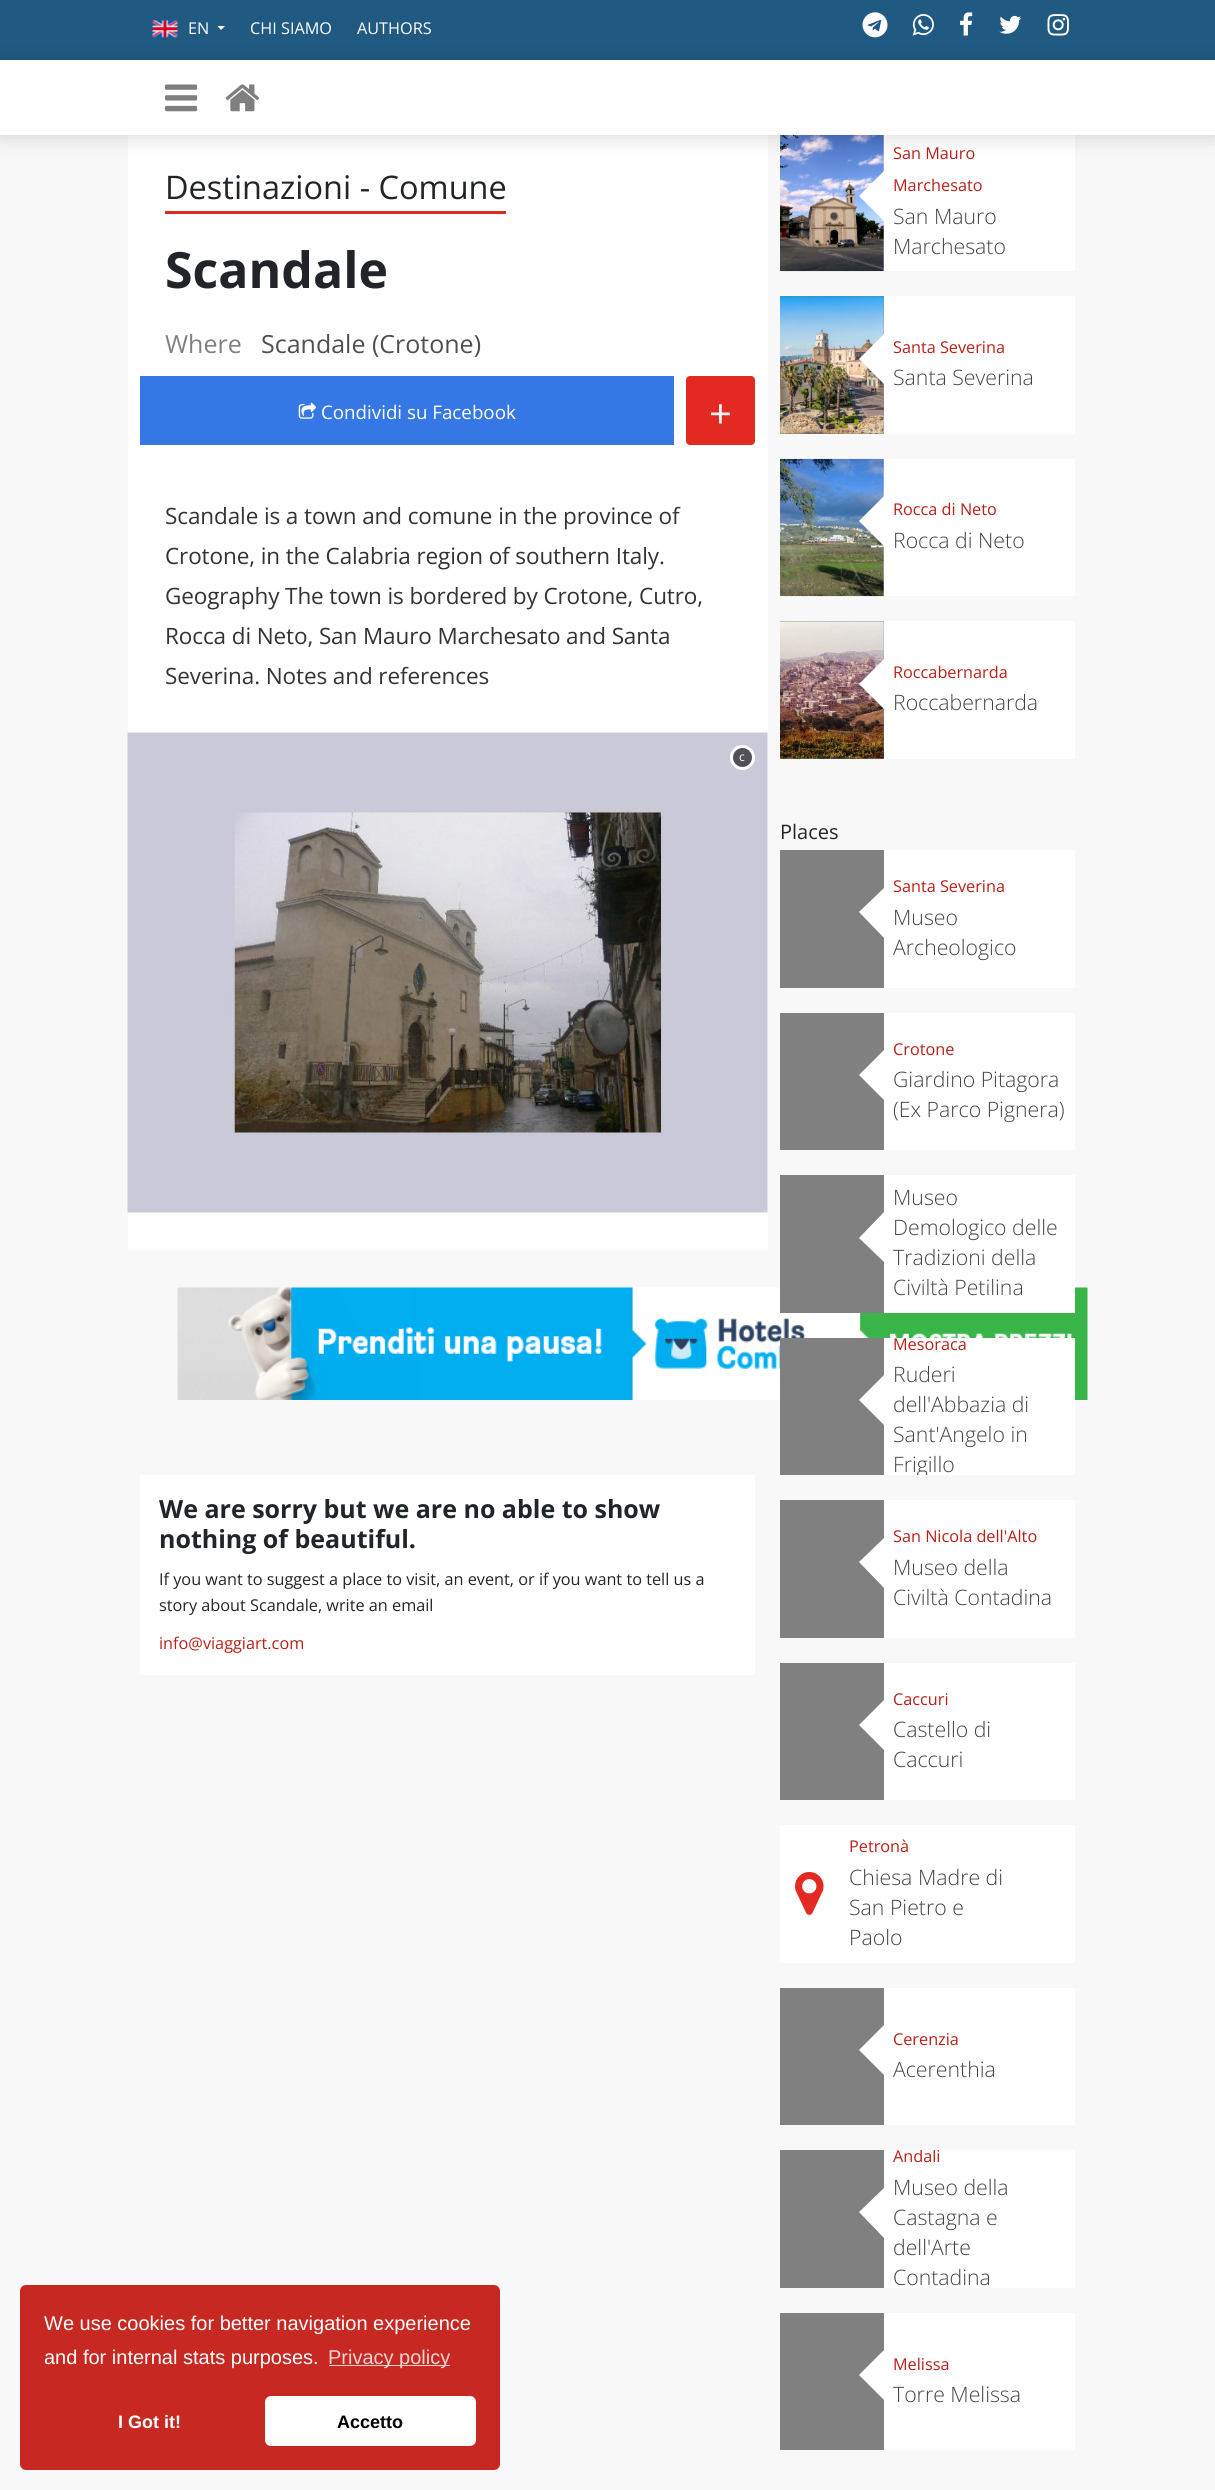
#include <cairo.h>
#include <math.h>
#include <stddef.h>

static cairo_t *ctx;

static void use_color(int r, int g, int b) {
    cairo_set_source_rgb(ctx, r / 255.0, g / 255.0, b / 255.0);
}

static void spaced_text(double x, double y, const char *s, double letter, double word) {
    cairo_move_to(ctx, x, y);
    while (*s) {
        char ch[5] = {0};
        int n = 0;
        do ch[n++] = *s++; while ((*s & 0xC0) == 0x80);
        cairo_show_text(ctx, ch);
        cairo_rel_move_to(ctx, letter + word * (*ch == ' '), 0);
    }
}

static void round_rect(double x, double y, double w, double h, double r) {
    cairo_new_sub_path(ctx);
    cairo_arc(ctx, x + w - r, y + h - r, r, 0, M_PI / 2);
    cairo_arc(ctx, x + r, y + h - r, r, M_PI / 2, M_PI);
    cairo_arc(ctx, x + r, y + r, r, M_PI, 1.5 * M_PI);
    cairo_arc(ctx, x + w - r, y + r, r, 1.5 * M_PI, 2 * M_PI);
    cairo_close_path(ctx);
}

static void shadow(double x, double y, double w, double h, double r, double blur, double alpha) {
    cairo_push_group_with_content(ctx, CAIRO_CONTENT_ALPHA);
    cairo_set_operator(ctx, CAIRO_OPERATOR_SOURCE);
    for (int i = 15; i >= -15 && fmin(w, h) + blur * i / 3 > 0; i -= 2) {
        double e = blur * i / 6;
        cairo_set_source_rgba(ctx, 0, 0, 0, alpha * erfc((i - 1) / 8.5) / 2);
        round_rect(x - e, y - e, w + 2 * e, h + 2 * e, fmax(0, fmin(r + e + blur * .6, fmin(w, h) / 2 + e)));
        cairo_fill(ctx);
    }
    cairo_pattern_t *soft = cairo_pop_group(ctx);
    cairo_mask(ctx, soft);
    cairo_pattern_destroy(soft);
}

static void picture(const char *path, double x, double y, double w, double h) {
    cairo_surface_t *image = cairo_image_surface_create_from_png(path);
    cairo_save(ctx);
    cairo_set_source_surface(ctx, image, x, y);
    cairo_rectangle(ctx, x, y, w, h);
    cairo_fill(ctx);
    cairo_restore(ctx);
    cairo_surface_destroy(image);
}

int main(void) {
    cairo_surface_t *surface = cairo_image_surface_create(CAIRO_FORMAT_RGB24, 1215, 2490);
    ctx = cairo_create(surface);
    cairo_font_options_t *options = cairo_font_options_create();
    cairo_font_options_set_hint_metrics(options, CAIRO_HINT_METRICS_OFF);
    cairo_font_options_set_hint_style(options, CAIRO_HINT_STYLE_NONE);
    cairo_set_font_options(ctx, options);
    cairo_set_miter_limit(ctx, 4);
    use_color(248, 248, 249);
    cairo_paint(ctx);
    use_color(32, 89, 129);
    cairo_rectangle(ctx, 0, 0, 1215, 60);
    cairo_fill(ctx);
    use_color(255, 255, 255);
    cairo_rectangle(ctx, 128, 135, 640, 1115);
    cairo_fill(ctx);
    cairo_rectangle(ctx, 883, 135, 192, 136);
    cairo_fill(ctx);
    picture("img12.png", 780, 135, 104, 137);
    use_color(0, 0, 0);
    shadow(0, 63, 1215, 75, 0, 10.5, 0.14);
    picture("img1.png", 152, 20, 26, 18);
    cairo_select_font_face(ctx, "Open Sans", CAIRO_FONT_SLANT_NORMAL, CAIRO_FONT_WEIGHT_NORMAL);
    cairo_set_font_size(ctx, 16.25);
    use_color(255, 255, 255);
    cairo_move_to(ctx, 188, 34);
    cairo_show_text(ctx, "EN");
    cairo_new_path(ctx);
    cairo_move_to(ctx, 217.5, 26);
    cairo_line_to(ctx, 225, 26);
    cairo_line_to(ctx, 221, 30);
    cairo_close_path(ctx);
    cairo_fill(ctx);
    cairo_move_to(ctx, 250, 34);
    cairo_show_text(ctx, "CHI SIAMO");
    cairo_move_to(ctx, 357, 34);
    cairo_show_text(ctx, "AUTHORS");
    picture("img2.png", 862, 12, 26, 26);
    picture("img3.png", 912, 14, 22, 22);
    picture("img4.png", 960, 12, 13, 24);
    picture("img5.png", 999, 15, 23, 19);
    picture("img6.png", 1047, 14, 22, 22);
    cairo_rectangle(ctx, 0, 60, 1215, 75);
    cairo_fill(ctx);
    picture("img7.png", 165, 84, 33, 28);
    picture("img8.png", 225, 84, 35, 28);
    use_color(226, 42, 34);
    cairo_rectangle(ctx, 165, 211, 341, 3);
    cairo_fill(ctx);
    cairo_set_font_size(ctx, 32.5);
    use_color(33, 37, 41);
    cairo_move_to(ctx, 165, 199);
    cairo_show_text(ctx, "Destinazioni - Comune");
    cairo_select_font_face(ctx, "Open Sans", CAIRO_FONT_SLANT_NORMAL, CAIRO_FONT_WEIGHT_BOLD);
    cairo_set_font_size(ctx, 50);
    cairo_move_to(ctx, 165, 288);
    cairo_show_text(ctx, "Scandale");
    cairo_select_font_face(ctx, "Open Sans", CAIRO_FONT_SLANT_NORMAL, CAIRO_FONT_WEIGHT_NORMAL);
    cairo_set_font_size(ctx, 25);
    use_color(128, 128, 128);
    cairo_move_to(ctx, 165, 353);
    cairo_show_text(ctx, "Where");
    use_color(79, 79, 79);
    cairo_move_to(ctx, 261, 353);
    cairo_show_text(ctx, "Scandale (Crotone)");
    use_color(53, 120, 229);
    cairo_rectangle(ctx, 140, 376, 534, 69);
    cairo_fill(ctx);
    picture("img9.png", 298, 402, 19, 17);
    cairo_set_font_size(ctx, 18.75);
    use_color(255, 255, 255);
    cairo_move_to(ctx, 321, 419);
    cairo_show_text(ctx, "Condividi su Facebook");
    use_color(226, 42, 34);
    round_rect(686, 376, 69, 69, 4);
    cairo_fill(ctx);
    cairo_set_font_size(ctx, 40);
    use_color(255, 255, 255);
    cairo_move_to(ctx, 709, 428);
    cairo_show_text(ctx, "+");
    cairo_set_font_size(ctx, 22.5);
    use_color(51, 51, 51);
    spaced_text(165, 524, "Scandale is a town and comune in the province of", -0.1, 0);
    spaced_text(165, 564, "Crotone, in the Calabria region of southern Italy.", -0.1, 0);
    spaced_text(165, 604, "Geography The town is bordered by Crotone, Cutro,", -0.1, 0);
    spaced_text(165, 644, "Rocca di Neto, San Mauro Marchesato and Santa", -0.1, 0);
    spaced_text(165, 684, "Severina. Notes and references", -0.1, 0);
    picture("img10.png", 127, 732, 641, 481);
    use_color(81, 80, 86);
    cairo_arc(ctx, 742.5, 757.5, 11, 0, 2 * M_PI);
    cairo_fill_preserve(ctx);
    use_color(255, 255, 255);
    cairo_set_line_width(ctx, 3);
    cairo_stroke(ctx);
    cairo_set_font_size(ctx, 12);
    cairo_move_to(ctx, 739, 761);
    cairo_show_text(ctx, "c");
    picture("img11.png", 177, 1287, 911, 113);
    cairo_rectangle(ctx, 140, 1475, 615, 200);
    cairo_fill(ctx);
    cairo_select_font_face(ctx, "Open Sans", CAIRO_FONT_SLANT_NORMAL, CAIRO_FONT_WEIGHT_BOLD);
    cairo_set_font_size(ctx, 25);
    use_color(33, 37, 41);
    cairo_move_to(ctx, 159, 1518);
    cairo_show_text(ctx, "We are sorry but we are no able to show");
    cairo_move_to(ctx, 159, 1548);
    cairo_show_text(ctx, "nothing of beautiful.");
    cairo_select_font_face(ctx, "Open Sans", CAIRO_FONT_SLANT_NORMAL, CAIRO_FONT_WEIGHT_NORMAL);
    cairo_set_font_size(ctx, 16.25);
    cairo_move_to(ctx, 159, 1585);
    cairo_show_text(ctx, "If you want to suggest a place to visit, an event, or if you want to tell us a");
    cairo_move_to(ctx, 159, 1611);
    cairo_show_text(ctx, "story about Scandale, write an email");
    use_color(185, 31, 24);
    cairo_move_to(ctx, 159, 1649);
    cairo_show_text(ctx, "info@viaggiart.com");
    use_color(255, 255, 255);
    cairo_new_path(ctx);
    cairo_move_to(ctx, 884, 171);
    cairo_line_to(ctx, 884, 221);
    cairo_line_to(ctx, 859, 196);
    cairo_close_path(ctx);
    cairo_fill(ctx);
    use_color(185, 31, 24);
    cairo_move_to(ctx, 893, 159);
    cairo_show_text(ctx, "San Mauro");
    cairo_move_to(ctx, 893, 191);
    cairo_show_text(ctx, "Marchesato");
    cairo_select_font_face(ctx, "Open Sans Light", CAIRO_FONT_SLANT_NORMAL, CAIRO_FONT_WEIGHT_NORMAL);
    cairo_set_font_size(ctx, 21.25);
    use_color(68, 68, 68);
    cairo_move_to(ctx, 893, 224);
    cairo_show_text(ctx, "San Mauro");
    cairo_move_to(ctx, 893, 254);
    cairo_show_text(ctx, "Marchesato");
    use_color(255, 255, 255);
    cairo_rectangle(ctx, 884, 296, 191, 138);
    cairo_fill(ctx);
    use_color(128, 128, 128);
    cairo_rectangle(ctx, 780, 296, 104, 138);
    cairo_fill(ctx);
    picture("img13.png", 780, 296, 104, 138);
    use_color(255, 255, 255);
    cairo_new_path(ctx);
    cairo_move_to(ctx, 884, 334);
    cairo_line_to(ctx, 884, 384);
    cairo_line_to(ctx, 859, 359);
    cairo_close_path(ctx);
    cairo_fill(ctx);
    cairo_select_font_face(ctx, "Open Sans", CAIRO_FONT_SLANT_NORMAL, CAIRO_FONT_WEIGHT_NORMAL);
    cairo_set_font_size(ctx, 16.25);
    use_color(185, 31, 24);
    cairo_move_to(ctx, 893, 353);
    cairo_show_text(ctx, "Santa Severina");
    cairo_select_font_face(ctx, "Open Sans Light", CAIRO_FONT_SLANT_NORMAL, CAIRO_FONT_WEIGHT_NORMAL);
    cairo_set_font_size(ctx, 21.25);
    use_color(68, 68, 68);
    cairo_move_to(ctx, 893, 385);
    cairo_show_text(ctx, "Santa Severina");
    use_color(255, 255, 255);
    cairo_rectangle(ctx, 883, 459, 192, 137);
    cairo_fill(ctx);
    picture("img14.png", 780, 458, 104, 139);
    cairo_new_path(ctx);
    cairo_move_to(ctx, 884, 496);
    cairo_line_to(ctx, 884, 546);
    cairo_line_to(ctx, 859, 521);
    cairo_close_path(ctx);
    cairo_fill(ctx);
    cairo_select_font_face(ctx, "Open Sans", CAIRO_FONT_SLANT_NORMAL, CAIRO_FONT_WEIGHT_NORMAL);
    cairo_set_font_size(ctx, 16.25);
    use_color(185, 31, 24);
    cairo_move_to(ctx, 893, 515);
    cairo_show_text(ctx, "Rocca di Neto");
    cairo_select_font_face(ctx, "Open Sans Light", CAIRO_FONT_SLANT_NORMAL, CAIRO_FONT_WEIGHT_NORMAL);
    cairo_set_font_size(ctx, 21.25);
    use_color(68, 68, 68);
    cairo_move_to(ctx, 893, 548);
    cairo_show_text(ctx, "Rocca di Neto");
    use_color(255, 255, 255);
    cairo_rectangle(ctx, 884, 621, 191, 138);
    cairo_fill(ctx);
    use_color(128, 128, 128);
    cairo_rectangle(ctx, 780, 621, 104, 138);
    cairo_fill(ctx);
    picture("img15.png", 780, 621, 104, 138);
    use_color(255, 255, 255);
    cairo_new_path(ctx);
    cairo_move_to(ctx, 884, 659);
    cairo_line_to(ctx, 884, 709);
    cairo_line_to(ctx, 859, 684);
    cairo_close_path(ctx);
    cairo_fill(ctx);
    cairo_select_font_face(ctx, "Open Sans", CAIRO_FONT_SLANT_NORMAL, CAIRO_FONT_WEIGHT_NORMAL);
    cairo_set_font_size(ctx, 16.25);
    use_color(185, 31, 24);
    cairo_move_to(ctx, 893, 678);
    cairo_show_text(ctx, "Roccabernarda");
    cairo_select_font_face(ctx, "Open Sans Light", CAIRO_FONT_SLANT_NORMAL, CAIRO_FONT_WEIGHT_NORMAL);
    cairo_set_font_size(ctx, 21.25);
    use_color(68, 68, 68);
    cairo_move_to(ctx, 893, 710);
    cairo_show_text(ctx, "Roccabernarda");
    cairo_select_font_face(ctx, "Open Sans", CAIRO_FONT_SLANT_NORMAL, CAIRO_FONT_WEIGHT_NORMAL);
    cairo_set_font_size(ctx, 20);
    use_color(33, 37, 41);
    cairo_move_to(ctx, 780, 839);
    cairo_show_text(ctx, "Places");
    use_color(255, 255, 255);
    cairo_rectangle(ctx, 884, 850, 191, 138);
    cairo_fill(ctx);
    use_color(128, 128, 128);
    cairo_rectangle(ctx, 780, 850, 104, 138);
    cairo_fill(ctx);
    use_color(255, 255, 255);
    cairo_new_path(ctx);
    cairo_move_to(ctx, 884, 888);
    cairo_line_to(ctx, 884, 938);
    cairo_line_to(ctx, 859, 912);
    cairo_close_path(ctx);
    cairo_fill(ctx);
    cairo_set_font_size(ctx, 16.25);
    use_color(185, 31, 24);
    cairo_move_to(ctx, 893, 892);
    cairo_show_text(ctx, "Santa Severina");
    cairo_select_font_face(ctx, "Open Sans Light", CAIRO_FONT_SLANT_NORMAL, CAIRO_FONT_WEIGHT_NORMAL);
    cairo_set_font_size(ctx, 21.25);
    use_color(68, 68, 68);
    cairo_move_to(ctx, 893, 925);
    cairo_show_text(ctx, "Museo");
    cairo_move_to(ctx, 893, 955);
    cairo_show_text(ctx, "Archeologico");
    use_color(255, 255, 255);
    cairo_rectangle(ctx, 884, 1013, 191, 137);
    cairo_fill(ctx);
    use_color(128, 128, 128);
    cairo_rectangle(ctx, 780, 1013, 104, 137);
    cairo_fill(ctx);
    use_color(255, 255, 255);
    cairo_new_path(ctx);
    cairo_move_to(ctx, 884, 1050);
    cairo_line_to(ctx, 884, 1100);
    cairo_line_to(ctx, 859, 1075);
    cairo_close_path(ctx);
    cairo_fill(ctx);
    cairo_select_font_face(ctx, "Open Sans", CAIRO_FONT_SLANT_NORMAL, CAIRO_FONT_WEIGHT_NORMAL);
    cairo_set_font_size(ctx, 16.25);
    use_color(185, 31, 24);
    cairo_move_to(ctx, 893, 1055);
    cairo_show_text(ctx, "Crotone");
    cairo_select_font_face(ctx, "Open Sans Light", CAIRO_FONT_SLANT_NORMAL, CAIRO_FONT_WEIGHT_NORMAL);
    cairo_set_font_size(ctx, 21.25);
    use_color(68, 68, 68);
    cairo_move_to(ctx, 893, 1087);
    cairo_show_text(ctx, "Giardino Pitagora");
    cairo_move_to(ctx, 893, 1117);
    cairo_show_text(ctx, "(Ex Parco Pignera)");
    use_color(255, 255, 255);
    cairo_rectangle(ctx, 884, 1175, 191, 138);
    cairo_fill(ctx);
    use_color(128, 128, 128);
    cairo_rectangle(ctx, 780, 1175, 104, 138);
    cairo_fill(ctx);
    use_color(255, 255, 255);
    cairo_new_path(ctx);
    cairo_move_to(ctx, 884, 1212);
    cairo_line_to(ctx, 884, 1262);
    cairo_line_to(ctx, 859, 1238);
    cairo_close_path(ctx);
    cairo_fill(ctx);
    use_color(68, 68, 68);
    cairo_move_to(ctx, 893, 1205);
    cairo_show_text(ctx, "Museo");
    cairo_move_to(ctx, 893, 1235);
    cairo_show_text(ctx, "Demologico delle");
    cairo_move_to(ctx, 893, 1265);
    cairo_show_text(ctx, "Tradizioni della");
    cairo_move_to(ctx, 893, 1295);
    cairo_show_text(ctx, "Civiltà Petilina");
    use_color(255, 255, 255);
    cairo_rectangle(ctx, 884, 1338, 191, 137);
    cairo_fill(ctx);
    use_color(128, 128, 128);
    cairo_rectangle(ctx, 780, 1338, 104, 137);
    cairo_fill(ctx);
    use_color(255, 255, 255);
    cairo_new_path(ctx);
    cairo_move_to(ctx, 884, 1375);
    cairo_line_to(ctx, 884, 1425);
    cairo_line_to(ctx, 859, 1400);
    cairo_close_path(ctx);
    cairo_fill(ctx);
    cairo_select_font_face(ctx, "Open Sans", CAIRO_FONT_SLANT_NORMAL, CAIRO_FONT_WEIGHT_NORMAL);
    cairo_set_font_size(ctx, 16.25);
    use_color(185, 31, 24);
    cairo_move_to(ctx, 893, 1350);
    cairo_show_text(ctx, "Mesoraca");
    cairo_select_font_face(ctx, "Open Sans Light", CAIRO_FONT_SLANT_NORMAL, CAIRO_FONT_WEIGHT_NORMAL);
    cairo_set_font_size(ctx, 21.25);
    use_color(68, 68, 68);
    cairo_move_to(ctx, 893, 1382);
    cairo_show_text(ctx, "Ruderi");
    cairo_move_to(ctx, 893, 1412);
    cairo_show_text(ctx, "dell'Abbazia di");
    cairo_move_to(ctx, 893, 1442);
    cairo_show_text(ctx, "Sant'Angelo in");
    cairo_save(ctx);
    cairo_rectangle(ctx, 780, 1338, 295, 137);
    cairo_clip(ctx);
    cairo_move_to(ctx, 893, 1472);
    cairo_show_text(ctx, "Frigillo");
    cairo_restore(ctx);
    use_color(255, 255, 255);
    cairo_rectangle(ctx, 884, 1500, 191, 138);
    cairo_fill(ctx);
    use_color(128, 128, 128);
    cairo_rectangle(ctx, 780, 1500, 104, 138);
    cairo_fill(ctx);
    use_color(255, 255, 255);
    cairo_new_path(ctx);
    cairo_move_to(ctx, 884, 1538);
    cairo_line_to(ctx, 884, 1588);
    cairo_line_to(ctx, 859, 1562);
    cairo_close_path(ctx);
    cairo_fill(ctx);
    cairo_select_font_face(ctx, "Open Sans", CAIRO_FONT_SLANT_NORMAL, CAIRO_FONT_WEIGHT_NORMAL);
    cairo_set_font_size(ctx, 16.25);
    use_color(185, 31, 24);
    cairo_move_to(ctx, 893, 1542);
    cairo_show_text(ctx, "San Nicola dell'Alto");
    cairo_select_font_face(ctx, "Open Sans Light", CAIRO_FONT_SLANT_NORMAL, CAIRO_FONT_WEIGHT_NORMAL);
    cairo_set_font_size(ctx, 21.25);
    use_color(68, 68, 68);
    cairo_move_to(ctx, 893, 1575);
    cairo_show_text(ctx, "Museo della");
    cairo_move_to(ctx, 893, 1605);
    cairo_show_text(ctx, "Civiltà Contadina");
    use_color(255, 255, 255);
    cairo_rectangle(ctx, 884, 1663, 191, 137);
    cairo_fill(ctx);
    use_color(128, 128, 128);
    cairo_rectangle(ctx, 780, 1663, 104, 137);
    cairo_fill(ctx);
    use_color(255, 255, 255);
    cairo_new_path(ctx);
    cairo_move_to(ctx, 884, 1700);
    cairo_line_to(ctx, 884, 1750);
    cairo_line_to(ctx, 859, 1725);
    cairo_close_path(ctx);
    cairo_fill(ctx);
    cairo_select_font_face(ctx, "Open Sans", CAIRO_FONT_SLANT_NORMAL, CAIRO_FONT_WEIGHT_NORMAL);
    cairo_set_font_size(ctx, 16.25);
    use_color(185, 31, 24);
    cairo_move_to(ctx, 893, 1705);
    cairo_show_text(ctx, "Caccuri");
    cairo_select_font_face(ctx, "Open Sans Light", CAIRO_FONT_SLANT_NORMAL, CAIRO_FONT_WEIGHT_NORMAL);
    cairo_set_font_size(ctx, 21.25);
    use_color(68, 68, 68);
    cairo_move_to(ctx, 893, 1737);
    cairo_show_text(ctx, "Castello di");
    cairo_move_to(ctx, 893, 1767);
    cairo_show_text(ctx, "Caccuri");
    use_color(255, 255, 255);
    cairo_rectangle(ctx, 780, 1825, 295, 138);
    cairo_fill(ctx);
    picture("img16.png", 795, 1872, 29, 43);
    cairo_select_font_face(ctx, "Open Sans", CAIRO_FONT_SLANT_NORMAL, CAIRO_FONT_WEIGHT_NORMAL);
    cairo_set_font_size(ctx, 16.25);
    use_color(185, 31, 24);
    cairo_move_to(ctx, 849, 1852);
    cairo_show_text(ctx, "Petronà");
    cairo_select_font_face(ctx, "Open Sans Light", CAIRO_FONT_SLANT_NORMAL, CAIRO_FONT_WEIGHT_NORMAL);
    cairo_set_font_size(ctx, 21.25);
    use_color(68, 68, 68);
    cairo_move_to(ctx, 849, 1885);
    cairo_show_text(ctx, "Chiesa Madre di");
    cairo_move_to(ctx, 849, 1915);
    cairo_show_text(ctx, "San Pietro e");
    cairo_move_to(ctx, 849, 1945);
    cairo_show_text(ctx, "Paolo");
    use_color(255, 255, 255);
    cairo_rectangle(ctx, 884, 1988, 191, 137);
    cairo_fill(ctx);
    use_color(128, 128, 128);
    cairo_rectangle(ctx, 780, 1988, 104, 137);
    cairo_fill(ctx);
    use_color(255, 255, 255);
    cairo_new_path(ctx);
    cairo_move_to(ctx, 884, 2025);
    cairo_line_to(ctx, 884, 2075);
    cairo_line_to(ctx, 859, 2050);
    cairo_close_path(ctx);
    cairo_fill(ctx);
    cairo_select_font_face(ctx, "Open Sans", CAIRO_FONT_SLANT_NORMAL, CAIRO_FONT_WEIGHT_NORMAL);
    cairo_set_font_size(ctx, 16.25);
    use_color(185, 31, 24);
    cairo_move_to(ctx, 893, 2045);
    cairo_show_text(ctx, "Cerenzia");
    cairo_select_font_face(ctx, "Open Sans Light", CAIRO_FONT_SLANT_NORMAL, CAIRO_FONT_WEIGHT_NORMAL);
    cairo_set_font_size(ctx, 21.25);
    use_color(68, 68, 68);
    cairo_move_to(ctx, 893, 2077);
    cairo_show_text(ctx, "Acerenthia");
    use_color(255, 255, 255);
    cairo_rectangle(ctx, 884, 2150, 191, 138);
    cairo_fill(ctx);
    use_color(128, 128, 128);
    cairo_rectangle(ctx, 780, 2150, 104, 138);
    cairo_fill(ctx);
    use_color(255, 255, 255);
    cairo_new_path(ctx);
    cairo_move_to(ctx, 884, 2188);
    cairo_line_to(ctx, 884, 2238);
    cairo_line_to(ctx, 859, 2212);
    cairo_close_path(ctx);
    cairo_fill(ctx);
    cairo_save(ctx);
    cairo_rectangle(ctx, 780, 2150, 295, 138);
    cairo_clip(ctx);
    cairo_select_font_face(ctx, "Open Sans", CAIRO_FONT_SLANT_NORMAL, CAIRO_FONT_WEIGHT_NORMAL);
    cairo_set_font_size(ctx, 16.25);
    use_color(185, 31, 24);
    cairo_move_to(ctx, 893, 2162);
    cairo_show_text(ctx, "Andali");
    cairo_restore(ctx);
    use_color(68, 68, 68);
    cairo_move_to(ctx, 893, 2195);
    cairo_show_text(ctx, "Museo della");
    cairo_move_to(ctx, 893, 2225);
    cairo_show_text(ctx, "Castagna e");
    cairo_move_to(ctx, 893, 2255);
    cairo_show_text(ctx, "dell'Arte");
    cairo_move_to(ctx, 893, 2285);
    cairo_show_text(ctx, "Contadina");
    use_color(255, 255, 255);
    cairo_rectangle(ctx, 884, 2313, 191, 137);
    cairo_fill(ctx);
    use_color(128, 128, 128);
    cairo_rectangle(ctx, 780, 2313, 104, 137);
    cairo_fill(ctx);
    use_color(255, 255, 255);
    cairo_new_path(ctx);
    cairo_move_to(ctx, 884, 2350);
    cairo_line_to(ctx, 884, 2400);
    cairo_line_to(ctx, 859, 2375);
    cairo_close_path(ctx);
    cairo_fill(ctx);
    cairo_select_font_face(ctx, "Open Sans", CAIRO_FONT_SLANT_NORMAL, CAIRO_FONT_WEIGHT_NORMAL);
    cairo_set_font_size(ctx, 16.25);
    use_color(185, 31, 24);
    cairo_move_to(ctx, 893, 2370);
    cairo_show_text(ctx, "Melissa");
    cairo_select_font_face(ctx, "Open Sans Light", CAIRO_FONT_SLANT_NORMAL, CAIRO_FONT_WEIGHT_NORMAL);
    cairo_set_font_size(ctx, 21.25);
    use_color(68, 68, 68);
    cairo_move_to(ctx, 893, 2402);
    cairo_show_text(ctx, "Torre Melissa");
    use_color(199, 40, 33);
    round_rect(20, 2285, 480, 185, 6);
    cairo_fill(ctx);
    cairo_select_font_face(ctx, "Liberation Sans", CAIRO_FONT_SLANT_NORMAL, CAIRO_FONT_WEIGHT_NORMAL);
    cairo_set_font_size(ctx, 20);
    use_color(255, 255, 255);
    cairo_move_to(ctx, 44, 2330);
    cairo_show_text(ctx, "We use cookies for better navigation experience");
    cairo_move_to(ctx, 44, 2364);
    cairo_show_text(ctx, "and for internal stats purposes.");
    use_color(244, 212, 211);
    cairo_rectangle(ctx, 329, 2365, 121, 1);
    cairo_fill(ctx);
    cairo_move_to(ctx, 328, 2364);
    cairo_show_text(ctx, "Privacy policy");
    cairo_select_font_face(ctx, "Liberation Sans", CAIRO_FONT_SLANT_NORMAL, CAIRO_FONT_WEIGHT_BOLD);
    cairo_set_font_size(ctx, 18);
    use_color(255, 255, 255);
    cairo_move_to(ctx, 118, 2428);
    cairo_show_text(ctx, "I Got it!");
    round_rect(265, 2396, 211, 50, 6);
    cairo_fill(ctx);
    use_color(0, 0, 0);
    cairo_move_to(ctx, 337, 2428);
    cairo_show_text(ctx, "Accetto");
    cairo_surface_write_to_png(surface, "result.png");
    cairo_font_options_destroy(options);
    cairo_destroy(ctx);
    cairo_surface_destroy(surface);
    return 0;
}
